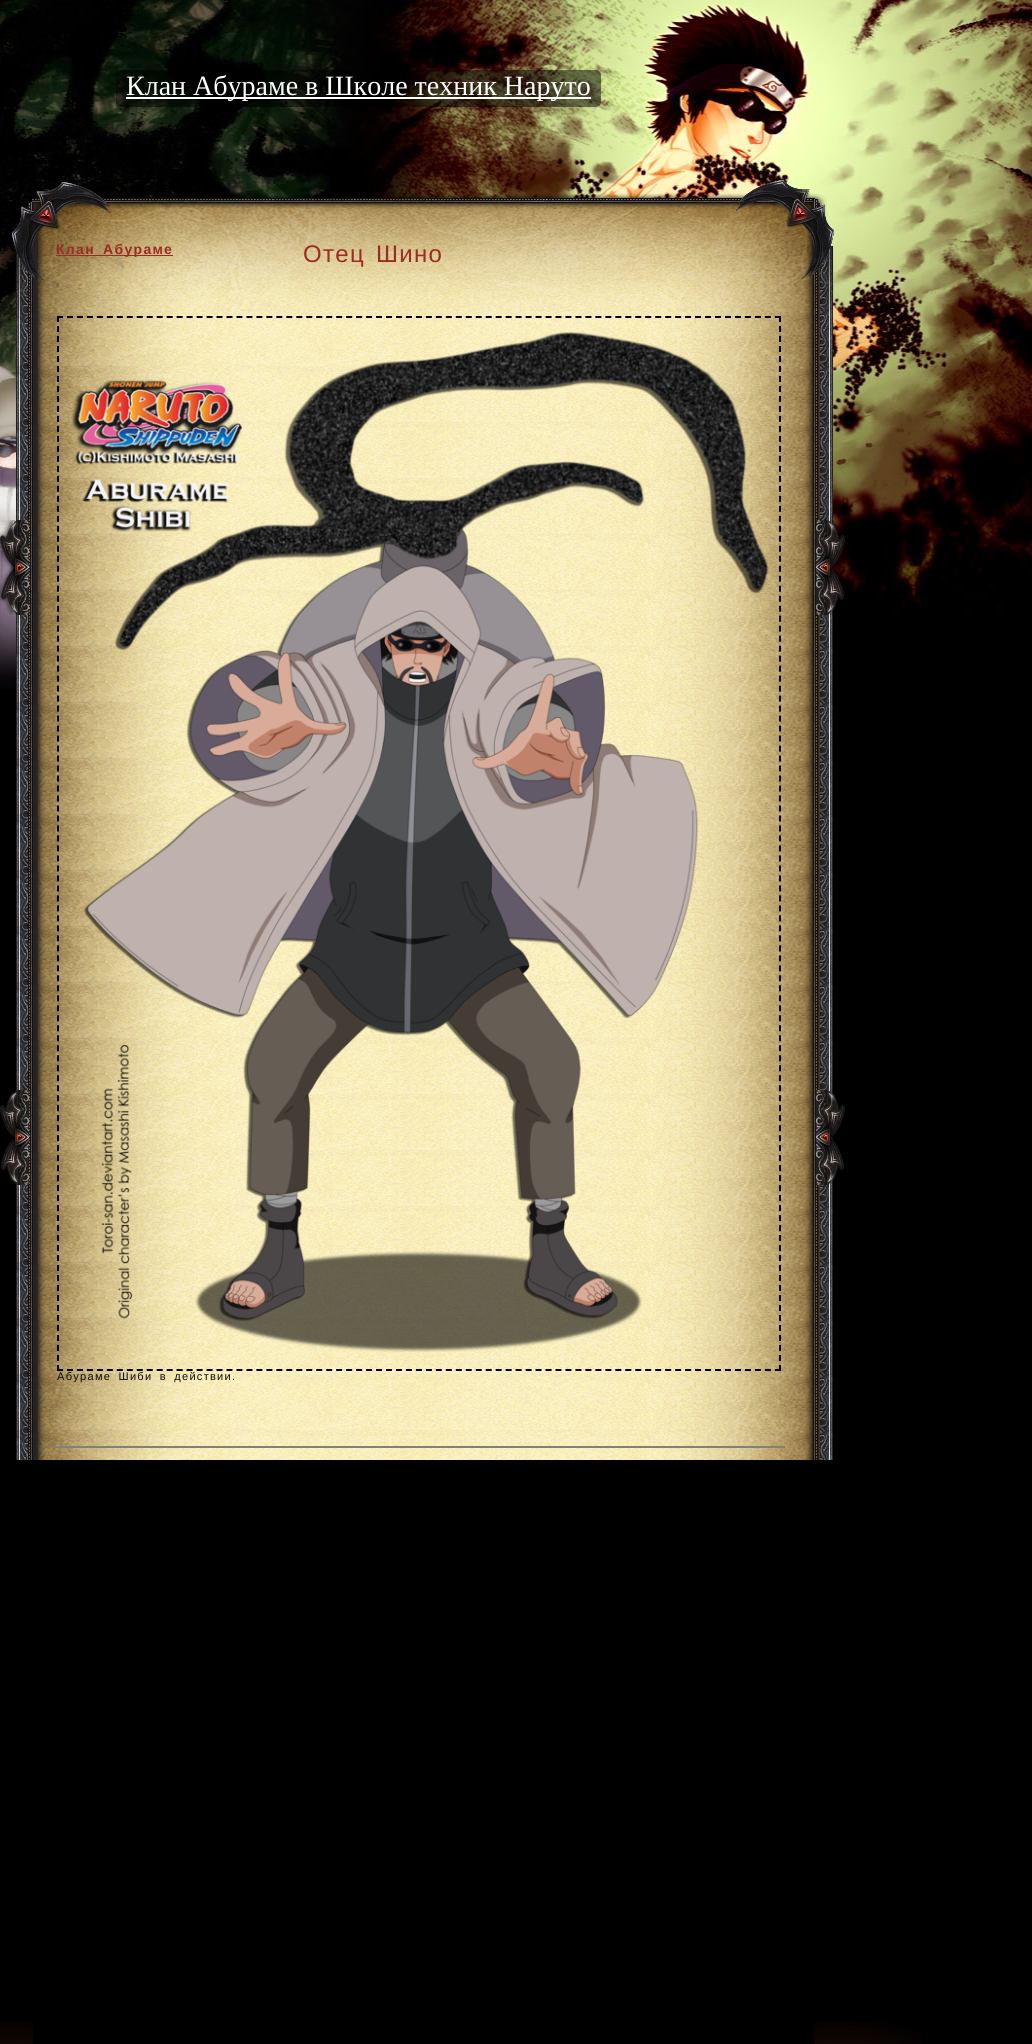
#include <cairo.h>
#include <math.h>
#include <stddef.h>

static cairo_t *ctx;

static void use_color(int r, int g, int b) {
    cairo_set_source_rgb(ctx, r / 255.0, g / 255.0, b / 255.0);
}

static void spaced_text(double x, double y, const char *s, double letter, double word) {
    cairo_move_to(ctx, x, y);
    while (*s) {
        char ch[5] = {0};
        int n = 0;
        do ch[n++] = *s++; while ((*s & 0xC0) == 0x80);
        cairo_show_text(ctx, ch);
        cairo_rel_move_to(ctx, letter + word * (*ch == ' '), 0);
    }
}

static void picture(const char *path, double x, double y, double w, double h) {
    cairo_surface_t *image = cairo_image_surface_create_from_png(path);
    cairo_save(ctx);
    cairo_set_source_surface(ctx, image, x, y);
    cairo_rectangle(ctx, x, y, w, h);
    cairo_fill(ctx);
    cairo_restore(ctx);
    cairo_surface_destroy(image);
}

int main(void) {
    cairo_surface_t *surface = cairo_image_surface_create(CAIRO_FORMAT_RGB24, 1032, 2044);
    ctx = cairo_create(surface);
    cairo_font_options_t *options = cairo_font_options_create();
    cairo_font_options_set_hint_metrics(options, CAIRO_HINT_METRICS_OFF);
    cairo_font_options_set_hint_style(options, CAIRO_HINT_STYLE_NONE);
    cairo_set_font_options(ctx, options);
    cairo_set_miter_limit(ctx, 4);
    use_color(0, 0, 0);
    cairo_paint(ctx);
    picture("img1.png", 0, 0, 1032, 689);
    picture("img2.png", 116, 70, 485, 37);
    use_color(255, 255, 255);
    cairo_rectangle(ctx, 126, 97, 465, 2);
    cairo_fill(ctx);
    cairo_select_font_face(ctx, "Liberation Serif", CAIRO_FONT_SLANT_NORMAL, CAIRO_FONT_WEIGHT_NORMAL);
    cairo_set_font_size(ctx, 28);
    cairo_move_to(ctx, 126, 95);
    cairo_show_text(ctx, "Клан Абураме в Школе техник Наруто");
    picture("img3.png", 12, 180, 823, 130);
    picture("img4.png", 16, 310, 817, 1150);
    picture("img5.png", 0, 520, 29, 95);
    use_color(155, 43, 35);
    cairo_rectangle(ctx, 56, 255, 117, 1);
    cairo_fill(ctx);
    cairo_select_font_face(ctx, "Liberation Sans", CAIRO_FONT_SLANT_NORMAL, CAIRO_FONT_WEIGHT_BOLD);
    cairo_set_font_size(ctx, 14);
    spaced_text(56, 254, "Клан Абураме", 1.3, 3);
    cairo_select_font_face(ctx, "Liberation Sans", CAIRO_FONT_SLANT_NORMAL, CAIRO_FONT_WEIGHT_NORMAL);
    cairo_set_font_size(ctx, 24);
    spaced_text(303, 262, "Отец Шино", 1.3, 3);
    cairo_new_path(ctx);
    cairo_move_to(ctx, 57, 317);
    cairo_line_to(ctx, 781, 317);
    use_color(0, 0, 0);
    cairo_set_dash(ctx, (double[]){6, 3.97}, 2, 0);
    cairo_stroke(ctx);
    cairo_new_path(ctx);
    cairo_move_to(ctx, 780, 316);
    cairo_line_to(ctx, 780, 1371);
    cairo_set_dash(ctx, (double[]){6, 3.99}, 2, 0);
    cairo_stroke(ctx);
    cairo_new_path(ctx);
    cairo_move_to(ctx, 57, 1370);
    cairo_line_to(ctx, 781, 1370);
    cairo_set_dash(ctx, (double[]){6, 3.97}, 2, 0);
    cairo_stroke(ctx);
    cairo_new_path(ctx);
    cairo_move_to(ctx, 58, 316);
    cairo_line_to(ctx, 58, 1371);
    cairo_set_dash(ctx, (double[]){6, 3.99}, 2, 0);
    cairo_stroke(ctx);
    picture("img6.png", 71, 332, 698, 1020);
    cairo_set_font_size(ctx, 11);
    use_color(10, 10, 10);
    spaced_text(57, 1380, "Абураме Шиби в действии.", 1.3, 3);
    use_color(128, 128, 128);
    cairo_rectangle(ctx, 53, 1446, 732, 2);
    cairo_fill(ctx);
    picture("img7.png", 816, 520, 29, 95);
    picture("img8.png", 0, 1090, 29, 95);
    picture("img9.png", 816, 1090, 29, 95);
    picture("img10.png", 0, 2021, 33, 23);
    picture("img11.png", 814, 2021, 109, 23);
    cairo_surface_write_to_png(surface, "result.png");
    cairo_font_options_destroy(options);
    cairo_destroy(ctx);
    cairo_surface_destroy(surface);
    return 0;
}
